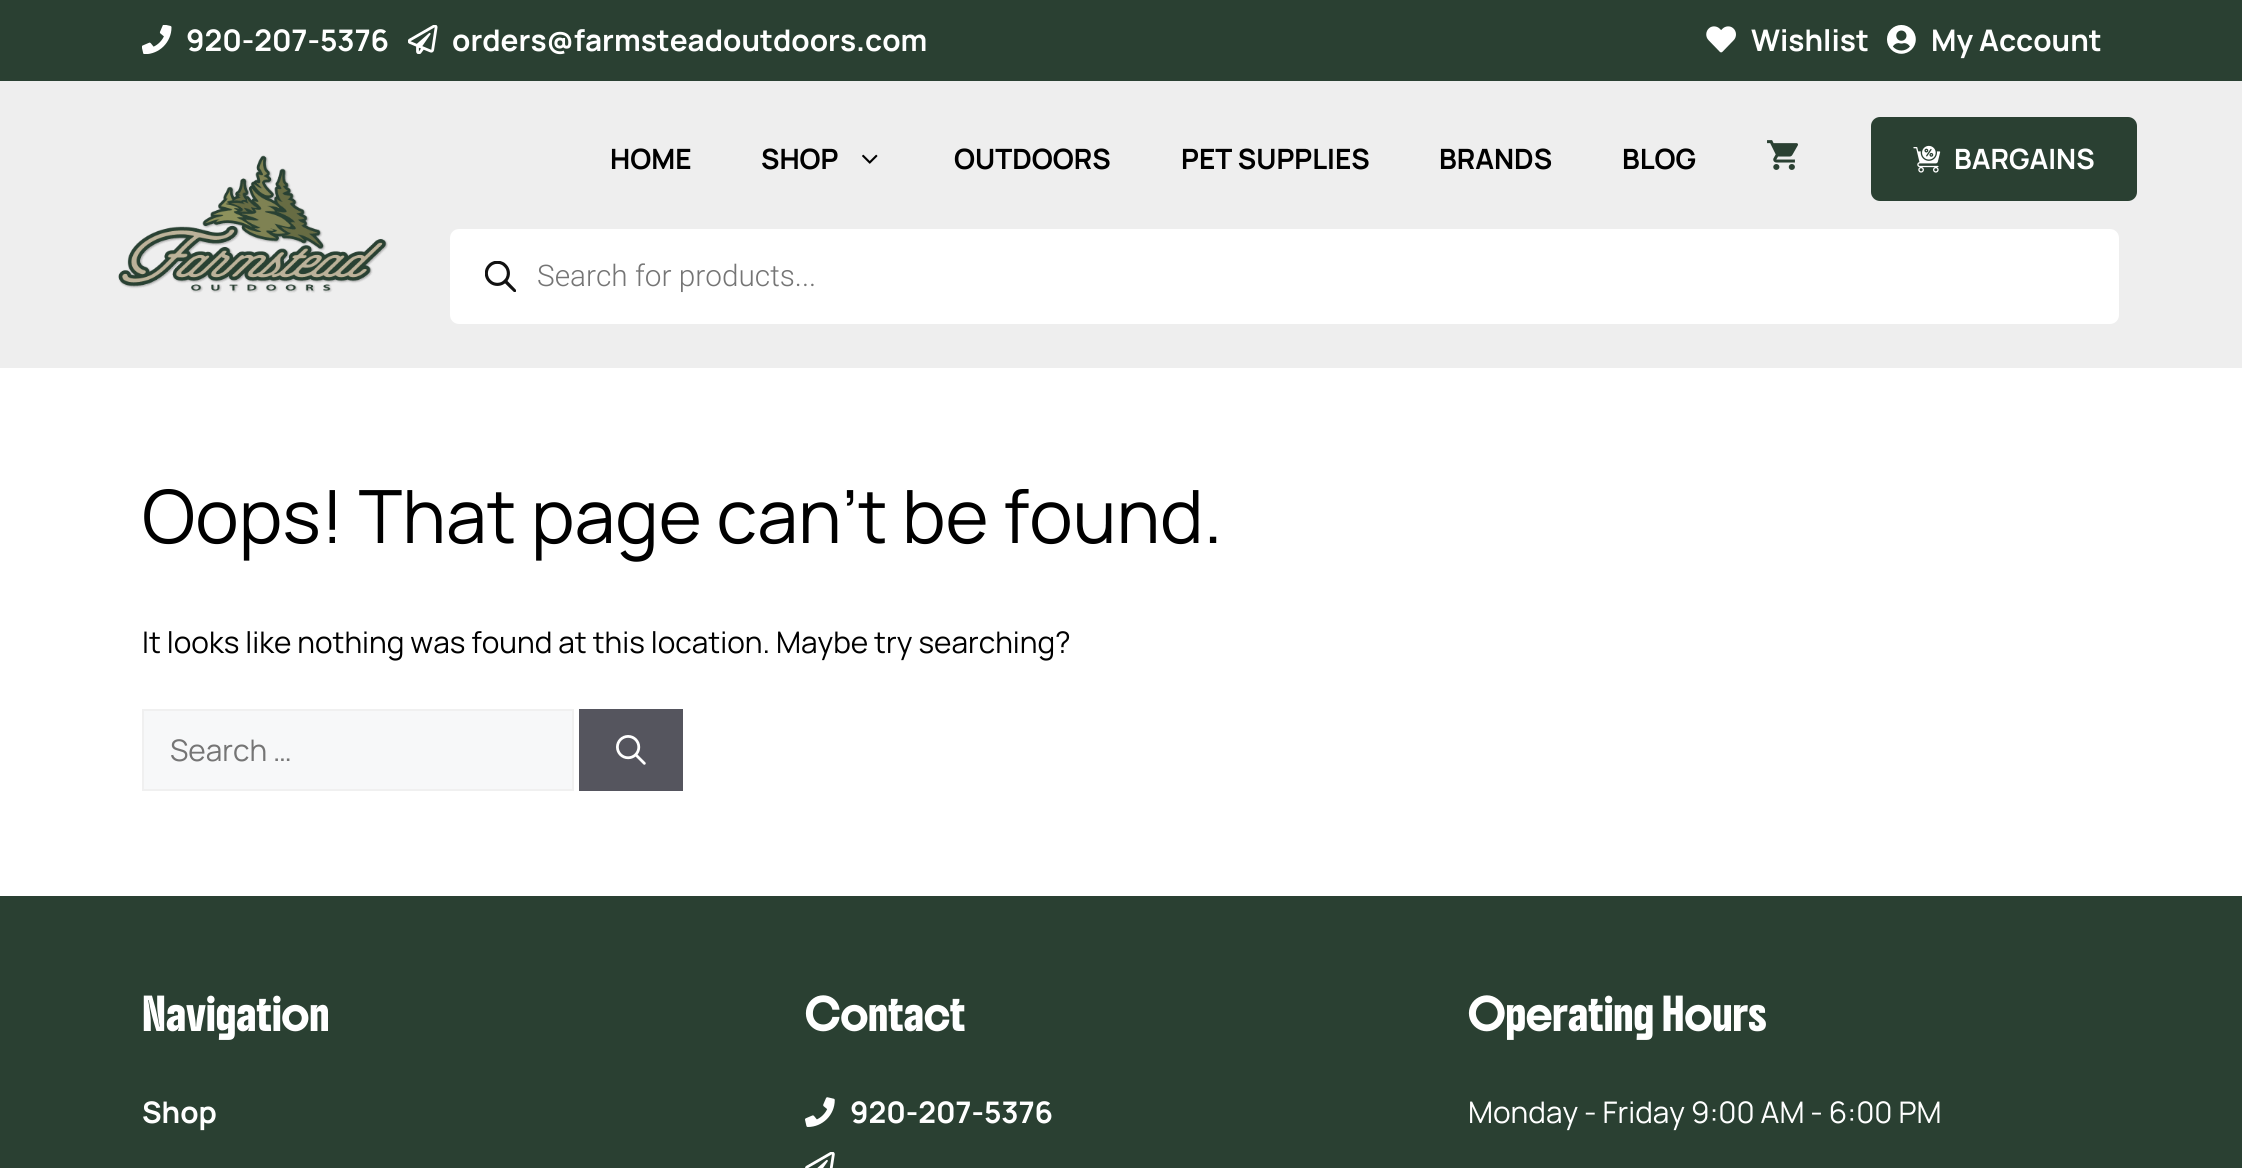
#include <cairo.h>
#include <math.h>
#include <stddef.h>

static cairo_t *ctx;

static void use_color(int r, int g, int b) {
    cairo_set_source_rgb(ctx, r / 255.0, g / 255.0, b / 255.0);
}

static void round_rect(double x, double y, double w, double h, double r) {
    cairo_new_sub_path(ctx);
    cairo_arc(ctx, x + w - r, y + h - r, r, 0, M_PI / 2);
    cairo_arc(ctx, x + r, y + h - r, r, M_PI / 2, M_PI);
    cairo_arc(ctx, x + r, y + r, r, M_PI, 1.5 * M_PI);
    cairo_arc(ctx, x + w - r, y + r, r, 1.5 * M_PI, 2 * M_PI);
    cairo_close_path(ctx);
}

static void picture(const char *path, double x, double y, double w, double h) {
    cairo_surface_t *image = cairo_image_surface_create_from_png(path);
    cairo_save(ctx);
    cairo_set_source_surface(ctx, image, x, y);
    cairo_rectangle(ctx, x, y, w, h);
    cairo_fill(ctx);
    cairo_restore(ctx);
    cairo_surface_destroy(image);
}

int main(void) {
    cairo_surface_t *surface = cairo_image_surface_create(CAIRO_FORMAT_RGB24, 2242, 1168);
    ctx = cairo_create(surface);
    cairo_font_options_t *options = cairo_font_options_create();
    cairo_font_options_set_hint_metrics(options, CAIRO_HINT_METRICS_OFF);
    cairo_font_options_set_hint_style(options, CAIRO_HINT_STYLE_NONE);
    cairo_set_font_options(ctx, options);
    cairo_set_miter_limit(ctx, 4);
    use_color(255, 255, 255);
    cairo_paint(ctx);
    use_color(42, 64, 50);
    cairo_rectangle(ctx, 0, 0, 2242, 81);
    cairo_fill(ctx);
    picture("img1.png", 142, 25, 30, 29);
    cairo_select_font_face(ctx, "Manrope", CAIRO_FONT_SLANT_NORMAL, CAIRO_FONT_WEIGHT_BOLD);
    cairo_set_font_size(ctx, 29.75);
    use_color(255, 255, 255);
    cairo_move_to(ctx, 186, 51);
    cairo_show_text(ctx, "920-207-5376");
    picture("img2.png", 408, 25, 30, 29);
    cairo_move_to(ctx, 452, 51);
    cairo_show_text(ctx, "orders@farmsteadoutdoors.com");
    picture("img3.png", 1706, 26, 30, 27);
    cairo_move_to(ctx, 1751, 51);
    cairo_show_text(ctx, "Wishlist");
    picture("img4.png", 1887, 25, 29, 29);
    cairo_move_to(ctx, 1931, 51);
    cairo_show_text(ctx, "My Account");
    use_color(238, 238, 238);
    cairo_rectangle(ctx, 0, 81, 2242, 287);
    cairo_fill(ctx);
    picture("img5.png", 118, 155, 270, 138);
    cairo_set_font_size(ctx, 28);
    use_color(0, 0, 0);
    cairo_move_to(ctx, 610, 169);
    cairo_show_text(ctx, "HOME");
    cairo_move_to(ctx, 761, 169);
    cairo_show_text(ctx, "SHOP");
    picture("img6.png", 862, 154, 16, 10);
    cairo_move_to(ctx, 954, 169);
    cairo_show_text(ctx, "OUTDOORS");
    cairo_move_to(ctx, 1181, 169);
    cairo_show_text(ctx, "PET SUPPLIES");
    cairo_move_to(ctx, 1439, 169);
    cairo_show_text(ctx, "BRANDS");
    cairo_move_to(ctx, 1622, 169);
    cairo_show_text(ctx, "BLOG");
    picture("img7.png", 1767, 140, 31, 30);
    use_color(42, 64, 50);
    round_rect(1871, 117, 266, 84, 9);
    cairo_fill(ctx);
    picture("img8.png", 1913, 145, 28, 28);
    use_color(255, 255, 255);
    cairo_move_to(ctx, 1954, 169);
    cairo_show_text(ctx, "BARGAINS");
    round_rect(450, 229, 1669, 95, 9);
    cairo_fill(ctx);
    picture("img9.png", 485, 261, 31, 31);
    cairo_select_font_face(ctx, "Roboto Light", CAIRO_FONT_SLANT_NORMAL, CAIRO_FONT_WEIGHT_NORMAL);
    cairo_set_font_size(ctx, 29.75);
    use_color(117, 117, 117);
    cairo_move_to(ctx, 537, 286);
    cairo_show_text(ctx, "Search for products...");
    cairo_select_font_face(ctx, "Manrope", CAIRO_FONT_SLANT_NORMAL, CAIRO_FONT_WEIGHT_NORMAL);
    cairo_set_font_size(ctx, 73.5);
    use_color(0, 0, 0);
    cairo_move_to(ctx, 142, 543);
    cairo_show_text(ctx, "Oops! That page can’t be found.");
    cairo_set_font_size(ctx, 29.75);
    cairo_move_to(ctx, 142, 653);
    cairo_show_text(ctx, "It looks like nothing was found at this location. Maybe try searching?");
    use_color(247, 248, 249);
    cairo_rectangle(ctx, 143, 710, 430, 80);
    cairo_fill_preserve(ctx);
    use_color(240, 240, 240);
    cairo_stroke(ctx);
    use_color(117, 117, 117);
    cairo_move_to(ctx, 170, 761);
    cairo_show_text(ctx, "Search …");
    use_color(85, 85, 94);
    cairo_rectangle(ctx, 579, 709, 104, 82);
    cairo_fill(ctx);
    picture("img10.png", 616, 735, 30, 30);
    use_color(42, 64, 50);
    cairo_rectangle(ctx, 0, 896, 2242, 272);
    cairo_fill(ctx);
    cairo_select_font_face(ctx, "Boldonse", CAIRO_FONT_SLANT_NORMAL, CAIRO_FONT_WEIGHT_BOLD);
    use_color(255, 255, 255);
    cairo_move_to(ctx, 142, 1031);
    cairo_show_text(ctx, "Navigation");
    cairo_select_font_face(ctx, "Manrope", CAIRO_FONT_SLANT_NORMAL, CAIRO_FONT_WEIGHT_BOLD);
    cairo_move_to(ctx, 142, 1123);
    cairo_show_text(ctx, "Shop");
    cairo_select_font_face(ctx, "Boldonse", CAIRO_FONT_SLANT_NORMAL, CAIRO_FONT_WEIGHT_BOLD);
    cairo_move_to(ctx, 805, 1031);
    cairo_show_text(ctx, "Contact");
    picture("img11.png", 805, 1097, 30, 30);
    cairo_select_font_face(ctx, "Manrope", CAIRO_FONT_SLANT_NORMAL, CAIRO_FONT_WEIGHT_BOLD);
    cairo_move_to(ctx, 850, 1123);
    cairo_show_text(ctx, "920-207-5376");
    picture("img12.png", 805, 1152, 30, 16);
    cairo_select_font_face(ctx, "Boldonse", CAIRO_FONT_SLANT_NORMAL, CAIRO_FONT_WEIGHT_BOLD);
    cairo_move_to(ctx, 1468, 1031);
    cairo_show_text(ctx, "Operating Hours");
    cairo_select_font_face(ctx, "Manrope", CAIRO_FONT_SLANT_NORMAL, CAIRO_FONT_WEIGHT_NORMAL);
    cairo_move_to(ctx, 1468, 1123);
    cairo_show_text(ctx, "Monday - Friday 9:00 AM - 6:00 PM");
    cairo_surface_write_to_png(surface, "result.png");
    cairo_font_options_destroy(options);
    cairo_destroy(ctx);
    cairo_surface_destroy(surface);
    return 0;
}
